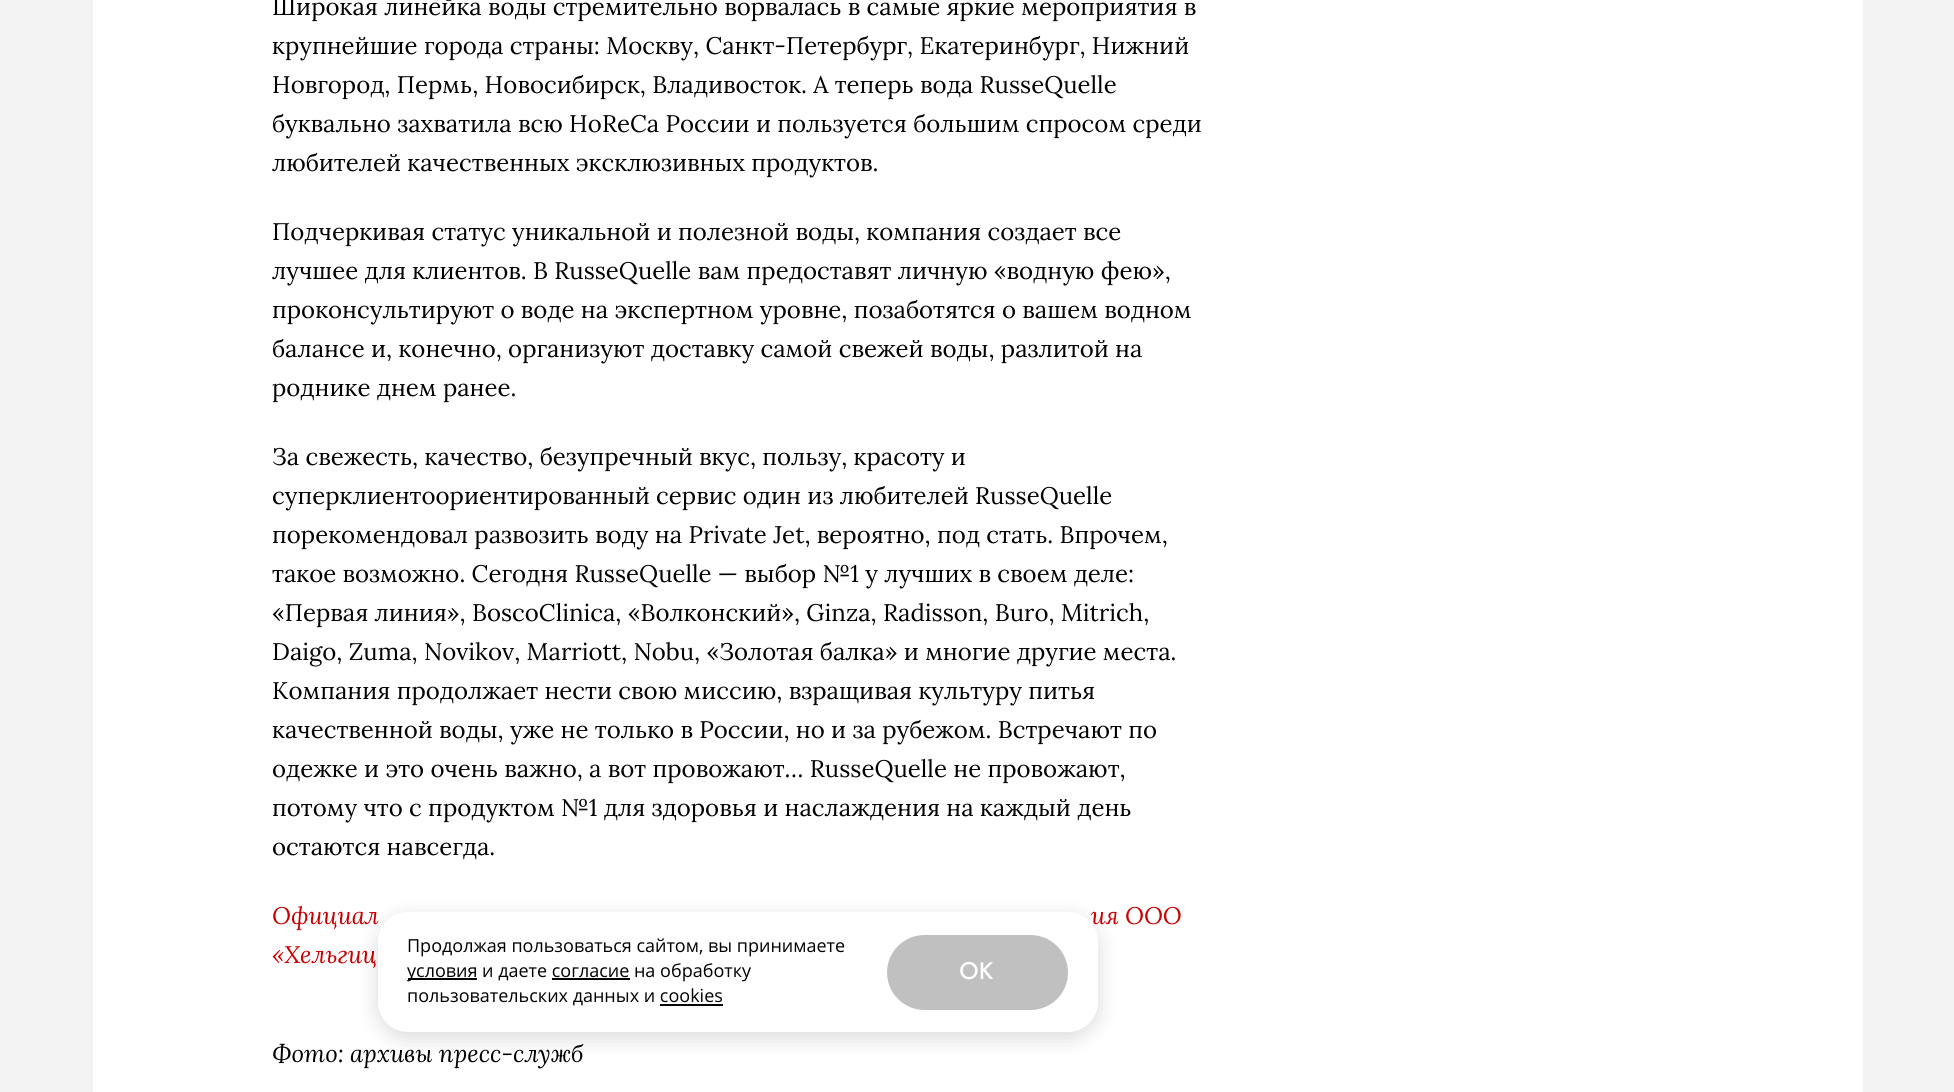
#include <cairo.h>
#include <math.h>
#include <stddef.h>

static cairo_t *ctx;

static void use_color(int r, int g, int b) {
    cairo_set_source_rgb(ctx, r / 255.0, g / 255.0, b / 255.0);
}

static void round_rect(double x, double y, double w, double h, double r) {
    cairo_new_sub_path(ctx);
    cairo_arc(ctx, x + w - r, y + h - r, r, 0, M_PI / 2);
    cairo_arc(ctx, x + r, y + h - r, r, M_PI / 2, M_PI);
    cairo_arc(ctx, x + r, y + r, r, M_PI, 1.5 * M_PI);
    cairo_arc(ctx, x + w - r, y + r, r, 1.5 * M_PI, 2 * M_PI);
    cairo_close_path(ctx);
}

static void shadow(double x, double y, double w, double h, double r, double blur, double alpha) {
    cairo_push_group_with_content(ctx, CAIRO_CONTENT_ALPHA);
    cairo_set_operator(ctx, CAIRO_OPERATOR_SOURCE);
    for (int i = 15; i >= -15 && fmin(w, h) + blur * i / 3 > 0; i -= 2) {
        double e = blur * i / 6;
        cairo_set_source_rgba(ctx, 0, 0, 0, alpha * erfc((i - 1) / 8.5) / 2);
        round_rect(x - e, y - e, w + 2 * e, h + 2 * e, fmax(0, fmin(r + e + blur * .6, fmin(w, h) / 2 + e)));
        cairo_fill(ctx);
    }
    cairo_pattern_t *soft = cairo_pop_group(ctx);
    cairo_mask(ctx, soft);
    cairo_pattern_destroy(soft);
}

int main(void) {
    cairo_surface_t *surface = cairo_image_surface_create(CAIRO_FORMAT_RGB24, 1954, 1092);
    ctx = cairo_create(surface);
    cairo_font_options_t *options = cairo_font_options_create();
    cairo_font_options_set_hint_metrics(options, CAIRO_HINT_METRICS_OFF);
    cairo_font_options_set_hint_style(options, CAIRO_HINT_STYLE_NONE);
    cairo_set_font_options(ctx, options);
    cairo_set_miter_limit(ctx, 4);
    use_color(243, 243, 243);
    cairo_paint(ctx);
    use_color(255, 255, 255);
    cairo_rectangle(ctx, 93, 0, 1770, 1092);
    cairo_fill(ctx);
    cairo_select_font_face(ctx, "Lora", CAIRO_FONT_SLANT_NORMAL, CAIRO_FONT_WEIGHT_NORMAL);
    cairo_set_font_size(ctx, 24);
    use_color(0, 0, 0);
    cairo_move_to(ctx, 272, 15);
    cairo_show_text(ctx, "Широкая линейка воды стремительно ворвалась в самые яркие мероприятия в");
    cairo_move_to(ctx, 272, 54);
    cairo_show_text(ctx, "крупнейшие города страны: Москву, Санкт-Петербург, Екатеринбург, Нижний");
    cairo_move_to(ctx, 272, 93);
    cairo_show_text(ctx, "Новгород, Пермь, Новосибирск, Владивосток. А теперь вода RusseQuelle");
    cairo_move_to(ctx, 272, 132);
    cairo_show_text(ctx, "буквально захватила всю HoReCa России и пользуется большим спросом среди");
    cairo_move_to(ctx, 272, 171);
    cairo_show_text(ctx, "любителей качественных эксклюзивных продуктов.");
    cairo_move_to(ctx, 272, 240);
    cairo_show_text(ctx, "Подчеркивая статус уникальной и полезной воды, компания создает все");
    cairo_move_to(ctx, 272, 279);
    cairo_show_text(ctx, "лучшее для клиентов. В RusseQuelle вам предоставят личную «водную фею»,");
    cairo_move_to(ctx, 272, 318);
    cairo_show_text(ctx, "проконсультируют о воде на экспертном уровне, позаботятся о вашем водном");
    cairo_move_to(ctx, 272, 357);
    cairo_show_text(ctx, "балансе и, конечно, организуют доставку самой свежей воды, разлитой на");
    cairo_move_to(ctx, 272, 396);
    cairo_show_text(ctx, "роднике днем ранее.");
    cairo_move_to(ctx, 272, 465);
    cairo_show_text(ctx, "За свежесть, качество, безупречный вкус, пользу, красоту и");
    cairo_move_to(ctx, 272, 504);
    cairo_show_text(ctx, "суперклиентоориентированный сервис один из любителей RusseQuelle");
    cairo_move_to(ctx, 272, 543);
    cairo_show_text(ctx, "порекомендовал развозить воду на Private Jet, вероятно, под стать. Впрочем,");
    cairo_move_to(ctx, 272, 582);
    cairo_show_text(ctx, "такое возможно. Сегодня RusseQuelle — выбор №1 у лучших в своем деле:");
    cairo_move_to(ctx, 272, 621);
    cairo_show_text(ctx, "«Первая линия», BoscoСlinica, «Волконский», Ginza, Radisson, Buro, Mitrich,");
    cairo_move_to(ctx, 272, 660);
    cairo_show_text(ctx, "Daigo, Zuma, Novikov, Marriott, Nobu, «Золотая балка» и многие другие места.");
    cairo_move_to(ctx, 272, 699);
    cairo_show_text(ctx, "Компания продолжает нести свою миссию, взращивая культуру питья");
    cairo_move_to(ctx, 272, 738);
    cairo_show_text(ctx, "качественной воды, уже не только в России, но и за рубежом. Встречают по");
    cairo_move_to(ctx, 272, 777);
    cairo_show_text(ctx, "одежке и это очень важно, а вот провожают… RusseQuelle не провожают,");
    cairo_move_to(ctx, 272, 816);
    cairo_show_text(ctx, "потому что с продуктом №1 для здоровья и наслаждения на каждый день");
    cairo_move_to(ctx, 272, 855);
    cairo_show_text(ctx, "остаются навсегда.");
    cairo_select_font_face(ctx, "Lora", CAIRO_FONT_SLANT_ITALIC, CAIRO_FONT_WEIGHT_NORMAL);
    use_color(204, 0, 0);
    cairo_move_to(ctx, 272, 924);
    cairo_show_text(ctx, "Официал");
    cairo_move_to(ctx, 1091, 924);
    cairo_show_text(ctx, "ия ООО");
    cairo_move_to(ctx, 272, 963);
    cairo_show_text(ctx, "«Хельгиц");
    use_color(0, 0, 0);
    cairo_move_to(ctx, 272, 1062);
    cairo_show_text(ctx, "Фото: архивы пресс-служб");
    use_color(0, 0, 0);
    shadow(378, 918, 720, 120, 30, 11, 0.15);
    use_color(255, 255, 255);
    round_rect(378, 912, 720, 120, 30);
    cairo_fill(ctx);
    cairo_select_font_face(ctx, "Open Sans", CAIRO_FONT_SLANT_NORMAL, CAIRO_FONT_WEIGHT_NORMAL);
    cairo_set_font_size(ctx, 18);
    use_color(0, 0, 0);
    cairo_move_to(ctx, 407, 952);
    cairo_show_text(ctx, "Продолжая пользоваться сайтом, вы принимаете");
    cairo_rectangle(ctx, 408, 978, 69, 2);
    cairo_fill(ctx);
    cairo_move_to(ctx, 407, 977);
    cairo_show_text(ctx, "условия и даете согласие на обработку");
    cairo_rectangle(ctx, 552, 978, 78, 2);
    cairo_fill(ctx);
    cairo_move_to(ctx, 407, 1002);
    cairo_show_text(ctx, "пользовательских данных и cookies");
    cairo_rectangle(ctx, 660, 1004, 63, 2);
    cairo_fill(ctx);
    use_color(192, 192, 192);
    round_rect(887, 935, 181, 75, 37.5);
    cairo_fill(ctx);
    cairo_select_font_face(ctx, "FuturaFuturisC", CAIRO_FONT_SLANT_NORMAL, CAIRO_FONT_WEIGHT_NORMAL);
    cairo_set_font_size(ctx, 24);
    use_color(255, 255, 255);
    cairo_move_to(ctx, 959, 979);
    cairo_show_text(ctx, "OK");
    cairo_surface_write_to_png(surface, "result.png");
    cairo_font_options_destroy(options);
    cairo_destroy(ctx);
    cairo_surface_destroy(surface);
    return 0;
}
